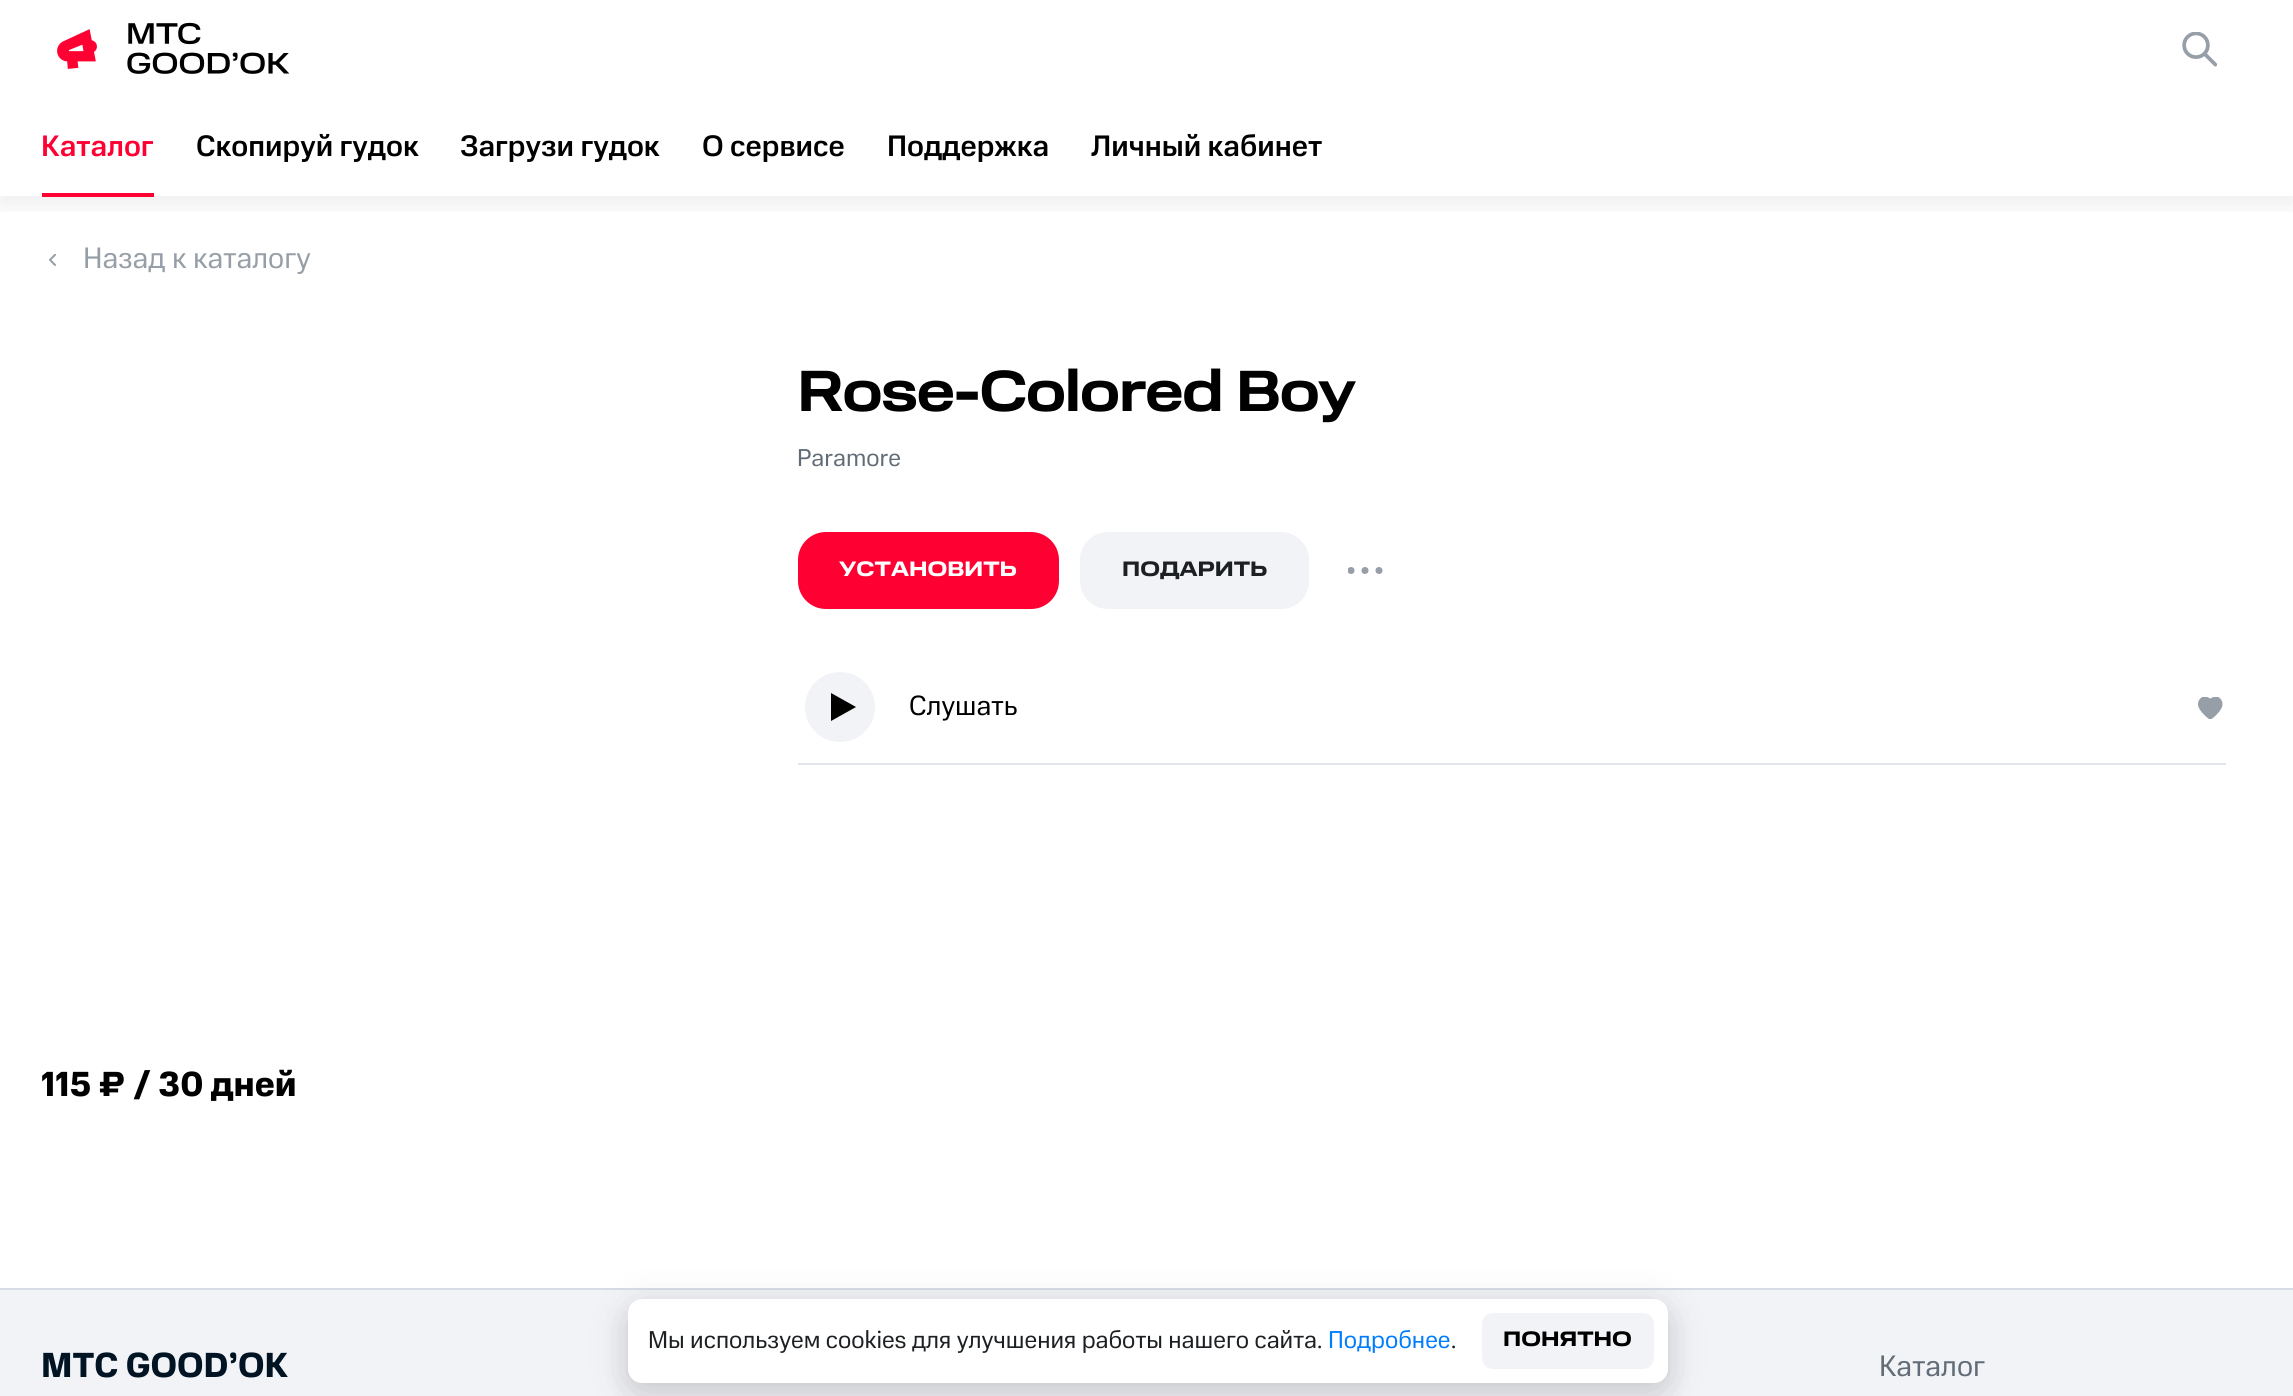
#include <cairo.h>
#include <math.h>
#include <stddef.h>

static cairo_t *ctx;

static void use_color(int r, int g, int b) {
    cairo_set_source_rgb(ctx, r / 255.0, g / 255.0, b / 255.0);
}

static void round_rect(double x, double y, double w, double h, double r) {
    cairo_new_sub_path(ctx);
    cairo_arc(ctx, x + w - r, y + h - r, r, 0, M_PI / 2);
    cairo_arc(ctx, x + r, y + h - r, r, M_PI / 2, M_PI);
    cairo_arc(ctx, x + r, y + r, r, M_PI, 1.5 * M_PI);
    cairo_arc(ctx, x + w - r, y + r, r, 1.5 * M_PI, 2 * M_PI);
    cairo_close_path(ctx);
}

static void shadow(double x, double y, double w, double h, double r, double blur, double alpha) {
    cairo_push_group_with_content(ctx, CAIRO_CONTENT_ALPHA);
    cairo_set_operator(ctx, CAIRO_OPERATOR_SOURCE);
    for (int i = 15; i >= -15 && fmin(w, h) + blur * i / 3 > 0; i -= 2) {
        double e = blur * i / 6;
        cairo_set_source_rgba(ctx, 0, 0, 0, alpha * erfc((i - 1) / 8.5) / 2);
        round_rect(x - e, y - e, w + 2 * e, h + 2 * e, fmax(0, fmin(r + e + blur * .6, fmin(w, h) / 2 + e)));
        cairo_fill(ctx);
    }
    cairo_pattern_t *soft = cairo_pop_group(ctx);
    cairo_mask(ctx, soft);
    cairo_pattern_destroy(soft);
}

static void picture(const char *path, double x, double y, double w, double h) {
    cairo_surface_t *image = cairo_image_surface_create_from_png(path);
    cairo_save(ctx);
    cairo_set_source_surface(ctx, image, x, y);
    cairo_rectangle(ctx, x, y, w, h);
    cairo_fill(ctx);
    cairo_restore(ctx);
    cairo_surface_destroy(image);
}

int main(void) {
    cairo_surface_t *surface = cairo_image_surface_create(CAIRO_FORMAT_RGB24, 2293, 1396);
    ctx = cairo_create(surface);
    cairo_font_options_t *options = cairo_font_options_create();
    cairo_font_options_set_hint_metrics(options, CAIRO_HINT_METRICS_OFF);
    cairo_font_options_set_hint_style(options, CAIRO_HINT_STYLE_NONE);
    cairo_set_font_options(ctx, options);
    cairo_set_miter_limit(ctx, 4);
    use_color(255, 255, 255);
    cairo_paint(ctx);
    cairo_save(ctx);
    cairo_rectangle(ctx, 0, 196, 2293, 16);
    cairo_clip(ctx);
    use_color(0, 0, 0);
    shadow(0, 7, 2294, 196, 0, 14, 0.08);
    cairo_restore(ctx);
    picture("img1.png", 57, 22, 233, 52);
    picture("img2.png", 2182, 32, 35, 35);
    cairo_select_font_face(ctx, "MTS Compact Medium", CAIRO_FONT_SLANT_NORMAL, CAIRO_FONT_WEIGHT_NORMAL);
    cairo_set_font_size(ctx, 29.75);
    use_color(255, 0, 50);
    cairo_move_to(ctx, 41, 156);
    cairo_show_text(ctx, "Каталог");
    cairo_rectangle(ctx, 42, 193, 112, 4);
    cairo_fill(ctx);
    use_color(0, 0, 0);
    cairo_move_to(ctx, 196, 156);
    cairo_show_text(ctx, "Скопируй гудок");
    cairo_move_to(ctx, 460, 156);
    cairo_show_text(ctx, "Загрузи гудок");
    cairo_move_to(ctx, 702, 156);
    cairo_show_text(ctx, "О сервисе");
    cairo_move_to(ctx, 887, 156);
    cairo_show_text(ctx, "Поддержка");
    cairo_move_to(ctx, 1091, 156);
    cairo_show_text(ctx, "Личный кабинет");
    picture("img3.png", 49, 254, 7, 12);
    cairo_select_font_face(ctx, "MTS Compact", CAIRO_FONT_SLANT_NORMAL, CAIRO_FONT_WEIGHT_NORMAL);
    use_color(150, 159, 168);
    cairo_move_to(ctx, 83, 268);
    cairo_show_text(ctx, "Назад к каталогу");
    cairo_select_font_face(ctx, "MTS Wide", CAIRO_FONT_SLANT_NORMAL, CAIRO_FONT_WEIGHT_BOLD);
    cairo_set_font_size(ctx, 56);
    use_color(0, 0, 0);
    cairo_move_to(ctx, 797, 411);
    cairo_show_text(ctx, "Rose-Colored Boy");
    cairo_select_font_face(ctx, "MTS Compact", CAIRO_FONT_SLANT_NORMAL, CAIRO_FONT_WEIGHT_NORMAL);
    cairo_set_font_size(ctx, 24.5);
    use_color(98, 108, 119);
    cairo_move_to(ctx, 797, 466);
    cairo_show_text(ctx, "Paramore");
    use_color(255, 0, 50);
    round_rect(798, 532, 261, 77, 28);
    cairo_fill(ctx);
    cairo_select_font_face(ctx, "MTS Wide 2", CAIRO_FONT_SLANT_NORMAL, CAIRO_FONT_WEIGHT_BOLD);
    cairo_set_font_size(ctx, 21);
    use_color(255, 255, 255);
    cairo_move_to(ctx, 839, 576);
    cairo_show_text(ctx, "УСТАНОВИТЬ");
    use_color(242, 243, 247);
    round_rect(1080, 532, 229, 77, 28);
    cairo_fill(ctx);
    use_color(29, 32, 35);
    cairo_move_to(ctx, 1122, 576);
    cairo_show_text(ctx, "ПОДАРИТЬ");
    cairo_save(ctx);
    cairo_rectangle(ctx, 1348, 567, 35, 7);
    cairo_clip(ctx);
    use_color(150, 159, 168);
    cairo_arc(ctx, 1351, 570.5, 3.5, 0, 2 * M_PI);
    cairo_fill(ctx);
    cairo_restore(ctx);
    use_color(150, 159, 168);
    cairo_arc(ctx, 1365, 570.5, 3.5, 0, 2 * M_PI);
    cairo_fill(ctx);
    cairo_arc(ctx, 1379, 570.5, 3.5, 0, 2 * M_PI);
    cairo_fill(ctx);
    use_color(226, 229, 235);
    cairo_rectangle(ctx, 798, 763, 1428, 2);
    cairo_fill(ctx);
    use_color(242, 243, 247);
    cairo_arc(ctx, 840, 707, 35, 0, 2 * M_PI);
    cairo_fill(ctx);
    use_color(0, 0, 0);
    cairo_new_path(ctx);
    cairo_move_to(ctx, 856, 707);
    cairo_line_to(ctx, 831, 693);
    cairo_line_to(ctx, 831, 721);
    cairo_close_path(ctx);
    cairo_fill(ctx);
    cairo_select_font_face(ctx, "MTS Compact", CAIRO_FONT_SLANT_NORMAL, CAIRO_FONT_WEIGHT_NORMAL);
    cairo_set_font_size(ctx, 28);
    cairo_move_to(ctx, 909, 715);
    cairo_show_text(ctx, "Слушать");
    picture("img4.png", 2198, 697, 25, 22);
    cairo_select_font_face(ctx, "MTS Compact", CAIRO_FONT_SLANT_NORMAL, CAIRO_FONT_WEIGHT_BOLD);
    cairo_set_font_size(ctx, 35);
    cairo_move_to(ctx, 41, 1096);
    cairo_show_text(ctx, "115 ₽ / 30 дней");
    use_color(242, 243, 247);
    cairo_rectangle(ctx, 0, 1290, 2293, 106);
    cairo_fill(ctx);
    use_color(215, 219, 228);
    cairo_rectangle(ctx, 0, 1288, 2293, 2);
    cairo_fill(ctx);
    use_color(0, 0, 0);
    shadow(628, 1313, 1040, 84, 14, 14, 0.08);
    shadow(628, 1306, 1040, 84, 14, 21, 0.12);
    use_color(255, 255, 255);
    round_rect(628, 1299, 1040, 84, 14);
    cairo_fill(ctx);
    cairo_select_font_face(ctx, "MTS Compact", CAIRO_FONT_SLANT_NORMAL, CAIRO_FONT_WEIGHT_NORMAL);
    cairo_set_font_size(ctx, 24.5);
    use_color(29, 32, 35);
    cairo_move_to(ctx, 648, 1348);
    cairo_show_text(ctx, "Мы используем cookies для улучшения работы нашего сайта.");
    use_color(0, 124, 255);
    cairo_move_to(ctx, 1328, 1348);
    cairo_show_text(ctx, "Подробнее");
    use_color(29, 32, 35);
    cairo_move_to(ctx, 1451, 1348);
    cairo_show_text(ctx, ".");
    use_color(242, 243, 247);
    round_rect(1482, 1313, 172, 56, 11);
    cairo_fill(ctx);
    cairo_select_font_face(ctx, "MTS Wide 2", CAIRO_FONT_SLANT_NORMAL, CAIRO_FONT_WEIGHT_BOLD);
    cairo_set_font_size(ctx, 21);
    use_color(0, 0, 0);
    cairo_move_to(ctx, 1503, 1346);
    cairo_show_text(ctx, "ПОНЯТНО");
    cairo_select_font_face(ctx, "MTS Compact", CAIRO_FONT_SLANT_NORMAL, CAIRO_FONT_WEIGHT_BOLD);
    cairo_set_font_size(ctx, 35);
    use_color(0, 20, 36);
    cairo_move_to(ctx, 41, 1377);
    cairo_show_text(ctx, "МТС GOOD’OK");
    cairo_select_font_face(ctx, "MTS Compact", CAIRO_FONT_SLANT_NORMAL, CAIRO_FONT_WEIGHT_NORMAL);
    cairo_set_font_size(ctx, 29.75);
    use_color(98, 108, 119);
    cairo_move_to(ctx, 1879, 1376);
    cairo_show_text(ctx, "Каталог");
    cairo_surface_write_to_png(surface, "result.png");
    cairo_font_options_destroy(options);
    cairo_destroy(ctx);
    cairo_surface_destroy(surface);
    return 0;
}
